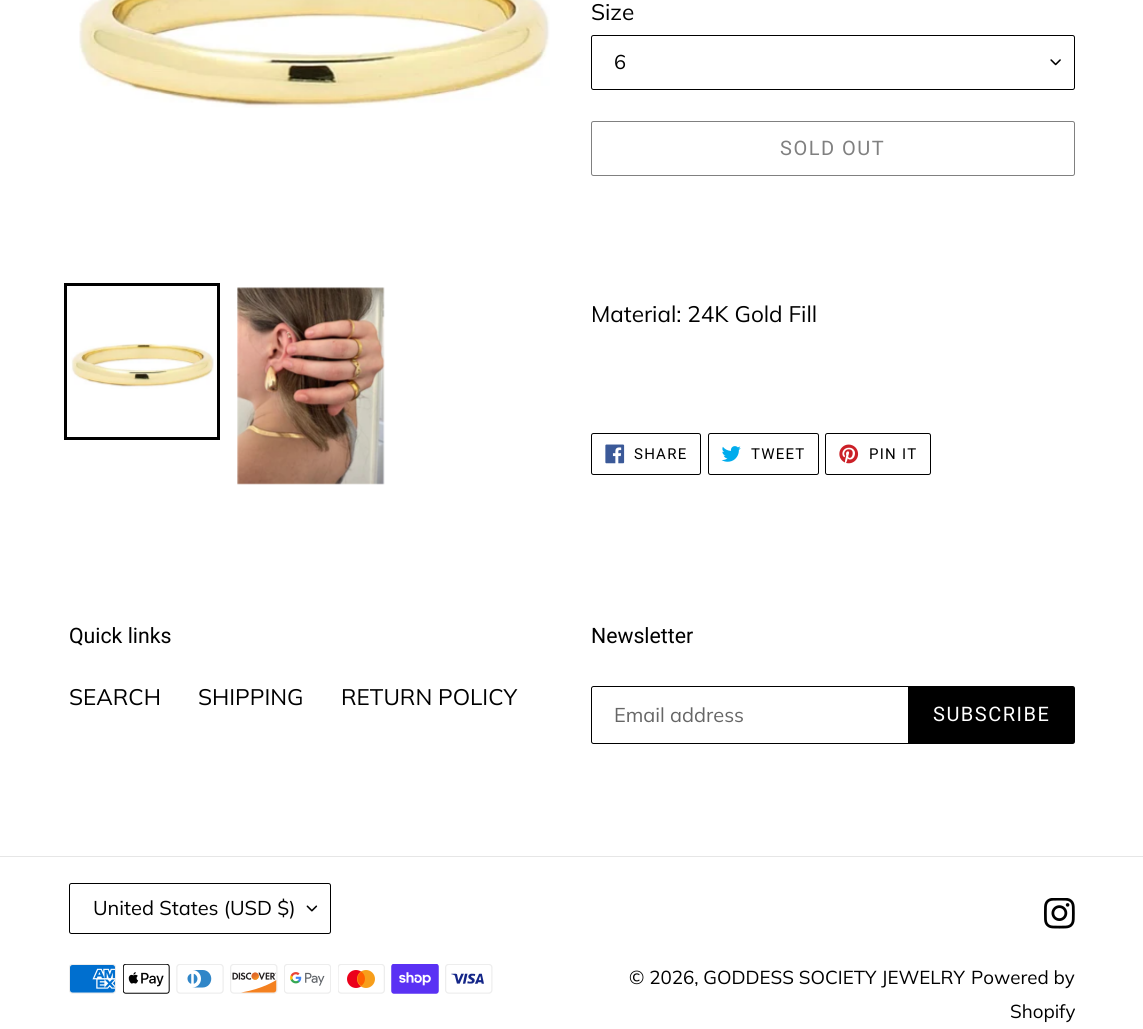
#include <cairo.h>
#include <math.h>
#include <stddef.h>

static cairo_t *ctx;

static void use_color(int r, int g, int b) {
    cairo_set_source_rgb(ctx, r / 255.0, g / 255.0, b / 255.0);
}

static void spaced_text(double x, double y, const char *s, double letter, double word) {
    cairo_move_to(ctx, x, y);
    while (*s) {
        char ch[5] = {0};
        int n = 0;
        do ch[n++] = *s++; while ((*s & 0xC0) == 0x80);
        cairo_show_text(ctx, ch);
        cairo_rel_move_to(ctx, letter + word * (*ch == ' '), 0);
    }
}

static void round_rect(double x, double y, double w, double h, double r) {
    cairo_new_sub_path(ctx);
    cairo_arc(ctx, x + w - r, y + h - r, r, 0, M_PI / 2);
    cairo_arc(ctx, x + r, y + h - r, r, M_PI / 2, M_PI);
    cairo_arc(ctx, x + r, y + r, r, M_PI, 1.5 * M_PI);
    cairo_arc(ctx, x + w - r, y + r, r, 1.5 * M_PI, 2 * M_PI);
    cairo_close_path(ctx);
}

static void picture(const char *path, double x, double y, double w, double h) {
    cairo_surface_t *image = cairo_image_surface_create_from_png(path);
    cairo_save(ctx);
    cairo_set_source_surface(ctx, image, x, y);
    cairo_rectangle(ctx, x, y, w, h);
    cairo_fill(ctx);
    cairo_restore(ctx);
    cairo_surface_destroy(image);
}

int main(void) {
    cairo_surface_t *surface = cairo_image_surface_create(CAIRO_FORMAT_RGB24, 1143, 1029);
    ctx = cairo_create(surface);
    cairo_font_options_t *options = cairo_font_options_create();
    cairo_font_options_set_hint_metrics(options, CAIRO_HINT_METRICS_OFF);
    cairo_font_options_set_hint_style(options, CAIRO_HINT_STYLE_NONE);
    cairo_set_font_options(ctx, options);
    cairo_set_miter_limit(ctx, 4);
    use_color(255, 255, 255);
    cairo_paint(ctx);
    picture("img1.png", 79, 0, 471, 108);
    cairo_rectangle(ctx, 65.5, 284.5, 153, 154);
    use_color(0, 0, 0);
    cairo_set_line_width(ctx, 3);
    cairo_stroke(ctx);
    picture("img2.png", 71, 343, 143, 46);
    picture("img3.png", 237, 287, 148, 198);
    cairo_select_font_face(ctx, "Muli", CAIRO_FONT_SLANT_NORMAL, CAIRO_FONT_WEIGHT_NORMAL);
    cairo_set_font_size(ctx, 22.5);
    cairo_move_to(ctx, 591, 20);
    cairo_show_text(ctx, "Size");
    picture("img4.png", 1050, 59, 11, 7);
    round_rect(591.5, 35.5, 483, 54, 2);
    cairo_set_line_width(ctx, 1);
    cairo_stroke(ctx);
    cairo_set_font_size(ctx, 20);
    cairo_move_to(ctx, 614, 69);
    cairo_show_text(ctx, "6");
    round_rect(591.5, 121.5, 483, 54, 2);
    use_color(128, 128, 128);
    cairo_stroke(ctx);
    cairo_select_font_face(ctx, "Roboto", CAIRO_FONT_SLANT_NORMAL, CAIRO_FONT_WEIGHT_NORMAL);
    spaced_text(780, 155, "SOLD OUT", 1.5, 0);
    cairo_select_font_face(ctx, "Muli", CAIRO_FONT_SLANT_NORMAL, CAIRO_FONT_WEIGHT_NORMAL);
    cairo_set_font_size(ctx, 22.5);
    use_color(0, 0, 0);
    cairo_move_to(ctx, 591, 322);
    cairo_show_text(ctx, "Material: 24K Gold Fill");
    round_rect(591.5, 433.5, 109, 41, 2);
    cairo_stroke(ctx);
    picture("img5.png", 605, 444, 20, 20);
    cairo_select_font_face(ctx, "Roboto", CAIRO_FONT_SLANT_NORMAL, CAIRO_FONT_WEIGHT_NORMAL);
    cairo_set_font_size(ctx, 15);
    spaced_text(634, 459, "SHARE", 1.25, 0);
    round_rect(708.5, 433.5, 110, 41, 2);
    cairo_stroke(ctx);
    picture("img6.png", 721, 446, 20, 16);
    spaced_text(751, 459, "TWEET", 1.25, 0);
    round_rect(825.5, 433.5, 105, 41, 2);
    cairo_stroke(ctx);
    picture("img7.png", 839, 444, 20, 20);
    spaced_text(869, 459, "PIN IT", 1.25, 0);
    cairo_set_font_size(ctx, 21.25);
    cairo_move_to(ctx, 69, 643);
    cairo_show_text(ctx, "Quick links");
    cairo_select_font_face(ctx, "Muli", CAIRO_FONT_SLANT_NORMAL, CAIRO_FONT_WEIGHT_NORMAL);
    cairo_set_font_size(ctx, 22.5);
    cairo_move_to(ctx, 69, 705);
    cairo_show_text(ctx, "SEARCH");
    cairo_move_to(ctx, 198, 705);
    cairo_show_text(ctx, "SHIPPING");
    cairo_move_to(ctx, 341, 705);
    cairo_show_text(ctx, "RETURN POLICY");
    cairo_select_font_face(ctx, "Roboto", CAIRO_FONT_SLANT_NORMAL, CAIRO_FONT_WEIGHT_NORMAL);
    cairo_set_font_size(ctx, 21.25);
    cairo_move_to(ctx, 591, 643);
    cairo_show_text(ctx, "Newsletter");
    cairo_new_path(ctx);
    cairo_move_to(ctx, 593.5, 686.5);
    cairo_line_to(ctx, 908.5, 686.5);
    cairo_line_to(ctx, 908.5, 743.5);
    cairo_line_to(ctx, 593.5, 743.5);
    cairo_curve_to(ctx, 592.5, 743.5, 591.5, 742.5, 591.5, 741.5);
    cairo_line_to(ctx, 591.5, 688.5);
    cairo_curve_to(ctx, 591.5, 687.5, 592.5, 686.5, 593.5, 686.5);
    cairo_close_path(ctx);
    cairo_stroke(ctx);
    cairo_select_font_face(ctx, "Muli", CAIRO_FONT_SLANT_NORMAL, CAIRO_FONT_WEIGHT_NORMAL);
    cairo_set_font_size(ctx, 20);
    use_color(102, 102, 102);
    cairo_move_to(ctx, 614, 722);
    cairo_show_text(ctx, "Email address");
    use_color(0, 0, 0);
    cairo_new_path(ctx);
    cairo_move_to(ctx, 909, 686);
    cairo_line_to(ctx, 1072.5, 686);
    cairo_curve_to(ctx, 1074, 686, 1075, 687, 1075, 688.5);
    cairo_line_to(ctx, 1075, 741.5);
    cairo_curve_to(ctx, 1075, 743, 1074, 744, 1072.5, 744);
    cairo_line_to(ctx, 909, 744);
    cairo_close_path(ctx);
    cairo_fill(ctx);
    cairo_select_font_face(ctx, "Roboto", CAIRO_FONT_SLANT_NORMAL, CAIRO_FONT_WEIGHT_NORMAL);
    use_color(255, 255, 255);
    spaced_text(933, 721, "SUBSCRIBE", 1.5, 0);
    use_color(230, 230, 230);
    cairo_rectangle(ctx, 0, 856, 1143, 1);
    cairo_fill(ctx);
    picture("img8.png", 306, 905, 12, 7);
    round_rect(69.5, 883.5, 261, 50, 2);
    use_color(0, 0, 0);
    cairo_stroke(ctx);
    cairo_select_font_face(ctx, "Muli", CAIRO_FONT_SLANT_NORMAL, CAIRO_FONT_WEIGHT_NORMAL);
    cairo_move_to(ctx, 93, 915);
    cairo_show_text(ctx, "United States (USD $)");
    picture("img9.png", 1044, 898, 31, 31);
    picture("img10.png", 69, 964, 47, 30);
    picture("img11.png", 123, 964, 47, 30);
    picture("img12.png", 176, 964, 48, 30);
    picture("img13.png", 230, 964, 48, 30);
    picture("img14.png", 284, 964, 47, 30);
    picture("img15.png", 338, 964, 47, 30);
    picture("img16.png", 391, 964, 48, 30);
    picture("img17.png", 445, 964, 48, 30);
    cairo_set_font_size(ctx, 18.75);
    cairo_move_to(ctx, 629, 984);
    cairo_show_text(ctx, "© 2026, GODDESS SOCIETY JEWELRY");
    cairo_move_to(ctx, 971, 984);
    cairo_show_text(ctx, "Powered by");
    cairo_move_to(ctx, 1010, 1018);
    cairo_show_text(ctx, "Shopify");
    cairo_surface_write_to_png(surface, "result.png");
    cairo_font_options_destroy(options);
    cairo_destroy(ctx);
    cairo_surface_destroy(surface);
    return 0;
}
